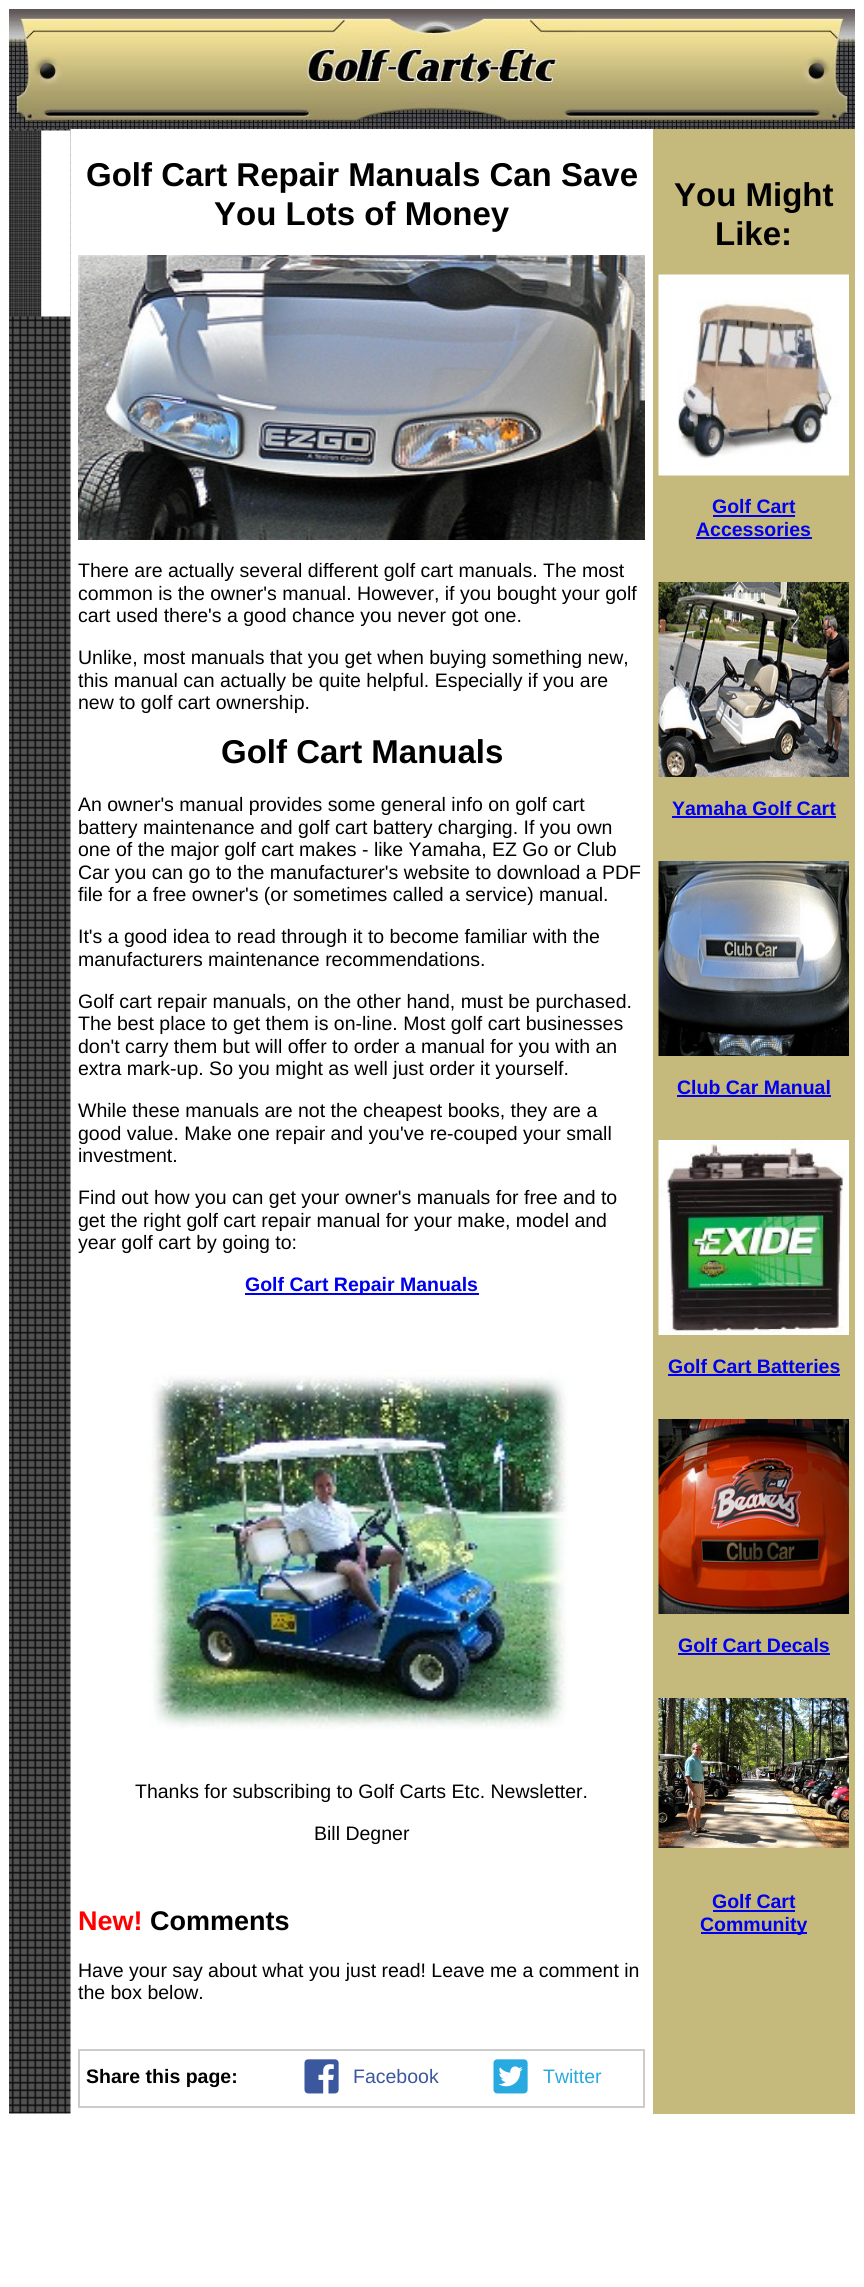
#include <cairo.h>
#include <math.h>
#include <stddef.h>

static cairo_t *ctx;

static void use_color(int r, int g, int b) {
    cairo_set_source_rgb(ctx, r / 255.0, g / 255.0, b / 255.0);
}

static void picture(const char *path, double x, double y, double w, double h) {
    cairo_surface_t *image = cairo_image_surface_create_from_png(path);
    cairo_save(ctx);
    cairo_set_source_surface(ctx, image, x, y);
    cairo_rectangle(ctx, x, y, w, h);
    cairo_fill(ctx);
    cairo_restore(ctx);
    cairo_surface_destroy(image);
}

int main(void) {
    cairo_surface_t *surface = cairo_image_surface_create(CAIRO_FORMAT_RGB24, 864, 2287);
    ctx = cairo_create(surface);
    cairo_font_options_t *options = cairo_font_options_create();
    cairo_font_options_set_hint_metrics(options, CAIRO_HINT_METRICS_OFF);
    cairo_font_options_set_hint_style(options, CAIRO_HINT_STYLE_NONE);
    cairo_set_font_options(ctx, options);
    cairo_set_miter_limit(ctx, 4);
    use_color(255, 255, 255);
    cairo_paint(ctx);
    picture("img1.png", 9, 9, 846, 120);
    picture("img2.png", 9, 129, 62, 1985);
    picture("img3.png", 9, 130, 62, 187);
    cairo_select_font_face(ctx, "Liberation Sans", CAIRO_FONT_SLANT_NORMAL, CAIRO_FONT_WEIGHT_BOLD);
    cairo_set_font_size(ctx, 33);
    use_color(0, 0, 0);
    cairo_move_to(ctx, 86, 186);
    cairo_show_text(ctx, "Golf Cart Repair Manuals Can Save");
    cairo_move_to(ctx, 214, 225);
    cairo_show_text(ctx, "You Lots of Money");
    picture("img4.png", 78, 255, 567, 285);
    cairo_select_font_face(ctx, "Liberation Sans", CAIRO_FONT_SLANT_NORMAL, CAIRO_FONT_WEIGHT_NORMAL);
    cairo_set_font_size(ctx, 19.5);
    cairo_move_to(ctx, 78, 577);
    cairo_show_text(ctx, "There are actually several different golf cart manuals. The most");
    cairo_move_to(ctx, 78, 600);
    cairo_show_text(ctx, "common is the owner's manual. However, if you bought your golf");
    cairo_move_to(ctx, 78, 622);
    cairo_show_text(ctx, "cart used there's a good chance you never got one.");
    cairo_move_to(ctx, 78, 664);
    cairo_show_text(ctx, "Unlike, most manuals that you get when buying something new,");
    cairo_move_to(ctx, 78, 687);
    cairo_show_text(ctx, "this manual can actually be quite helpful. Especially if you are");
    cairo_move_to(ctx, 78, 709);
    cairo_show_text(ctx, "new to golf cart ownership.");
    cairo_select_font_face(ctx, "Liberation Sans", CAIRO_FONT_SLANT_NORMAL, CAIRO_FONT_WEIGHT_BOLD);
    cairo_set_font_size(ctx, 33);
    cairo_move_to(ctx, 221, 763);
    cairo_show_text(ctx, "Golf Cart Manuals");
    cairo_select_font_face(ctx, "Liberation Sans", CAIRO_FONT_SLANT_NORMAL, CAIRO_FONT_WEIGHT_NORMAL);
    cairo_set_font_size(ctx, 19.5);
    cairo_move_to(ctx, 78, 811);
    cairo_show_text(ctx, "An owner's manual provides some general info on golf cart");
    cairo_move_to(ctx, 78, 834);
    cairo_show_text(ctx, "battery maintenance and golf cart battery charging. If you own");
    cairo_move_to(ctx, 78, 856);
    cairo_show_text(ctx, "one of the major golf cart makes - like Yamaha, EZ Go or Club");
    cairo_move_to(ctx, 78, 879);
    cairo_show_text(ctx, "Car you can go to the manufacturer's website to download a PDF");
    cairo_move_to(ctx, 78, 901);
    cairo_show_text(ctx, "file for a free owner's (or sometimes called a service) manual.");
    cairo_move_to(ctx, 78, 943);
    cairo_show_text(ctx, "It's a good idea to read through it to become familiar with the");
    cairo_move_to(ctx, 78, 966);
    cairo_show_text(ctx, "manufacturers maintenance recommendations.");
    cairo_move_to(ctx, 78, 1008);
    cairo_show_text(ctx, "Golf cart repair manuals, on the other hand, must be purchased.");
    cairo_move_to(ctx, 78, 1030);
    cairo_show_text(ctx, "The best place to get them is on-line. Most golf cart businesses");
    cairo_move_to(ctx, 78, 1053);
    cairo_show_text(ctx, "don't carry them but will offer to order a manual for you with an");
    cairo_move_to(ctx, 78, 1075);
    cairo_show_text(ctx, "extra mark-up. So you might as well just order it yourself.");
    cairo_move_to(ctx, 78, 1117);
    cairo_show_text(ctx, "While these manuals are not the cheapest books, they are a");
    cairo_move_to(ctx, 78, 1140);
    cairo_show_text(ctx, "good value. Make one repair and you've re-couped your small");
    cairo_move_to(ctx, 78, 1162);
    cairo_show_text(ctx, "investment.");
    cairo_move_to(ctx, 78, 1204);
    cairo_show_text(ctx, "Find out how you can get your owner's manuals for free and to");
    cairo_move_to(ctx, 78, 1227);
    cairo_show_text(ctx, "get the right golf cart repair manual for your make, model and");
    cairo_move_to(ctx, 78, 1249);
    cairo_show_text(ctx, "year golf cart by going to:");
    use_color(0, 0, 238);
    cairo_rectangle(ctx, 245, 1293, 234, 2);
    cairo_fill(ctx);
    cairo_select_font_face(ctx, "Liberation Sans", CAIRO_FONT_SLANT_NORMAL, CAIRO_FONT_WEIGHT_BOLD);
    cairo_move_to(ctx, 245, 1291);
    cairo_show_text(ctx, "Golf Cart Repair Manuals");
    picture("img5.png", 148, 1369, 420, 361);
    cairo_select_font_face(ctx, "Liberation Sans", CAIRO_FONT_SLANT_NORMAL, CAIRO_FONT_WEIGHT_NORMAL);
    use_color(0, 0, 0);
    cairo_move_to(ctx, 135, 1798);
    cairo_show_text(ctx, "Thanks for subscribing to Golf Carts Etc. Newsletter.");
    cairo_move_to(ctx, 314, 1840);
    cairo_show_text(ctx, "Bill Degner");
    cairo_select_font_face(ctx, "Liberation Sans", CAIRO_FONT_SLANT_NORMAL, CAIRO_FONT_WEIGHT_BOLD);
    cairo_set_font_size(ctx, 27);
    use_color(255, 0, 0);
    cairo_move_to(ctx, 78, 1930);
    cairo_show_text(ctx, "New!");
    use_color(0, 0, 0);
    cairo_move_to(ctx, 150, 1930);
    cairo_show_text(ctx, "Comments");
    cairo_select_font_face(ctx, "Liberation Sans", CAIRO_FONT_SLANT_NORMAL, CAIRO_FONT_WEIGHT_NORMAL);
    cairo_set_font_size(ctx, 19.5);
    cairo_move_to(ctx, 78, 1977);
    cairo_show_text(ctx, "Have your say about what you just read! Leave me a comment in");
    cairo_move_to(ctx, 78, 1999);
    cairo_show_text(ctx, "the box below.");
    cairo_rectangle(ctx, 79, 2050, 565, 57);
    use_color(204, 204, 204);
    cairo_stroke(ctx);
    cairo_select_font_face(ctx, "Liberation Sans", CAIRO_FONT_SLANT_NORMAL, CAIRO_FONT_WEIGHT_BOLD);
    use_color(0, 0, 0);
    cairo_move_to(ctx, 86, 2083);
    cairo_show_text(ctx, "Share this page:");
    picture("img6.png", 304, 2059, 35, 35);
    cairo_select_font_face(ctx, "Liberation Sans", CAIRO_FONT_SLANT_NORMAL, CAIRO_FONT_WEIGHT_NORMAL);
    use_color(59, 87, 157);
    cairo_move_to(ctx, 353, 2083);
    cairo_show_text(ctx, "Facebook");
    picture("img7.png", 493, 2059, 35, 35);
    use_color(40, 169, 224);
    cairo_move_to(ctx, 543, 2083);
    cairo_show_text(ctx, "Twitter");
    use_color(197, 186, 124);
    cairo_rectangle(ctx, 653, 129, 202, 1985);
    cairo_fill(ctx);
    cairo_select_font_face(ctx, "Liberation Sans", CAIRO_FONT_SLANT_NORMAL, CAIRO_FONT_WEIGHT_BOLD);
    cairo_set_font_size(ctx, 33);
    use_color(0, 0, 0);
    cairo_move_to(ctx, 674, 206);
    cairo_show_text(ctx, "You Might");
    cairo_move_to(ctx, 715, 245);
    cairo_show_text(ctx, "Like:");
    picture("img8.png", 658, 274, 191, 202);
    cairo_set_font_size(ctx, 19.5);
    use_color(0, 0, 238);
    cairo_move_to(ctx, 712, 513);
    cairo_show_text(ctx, "Golf Cart");
    cairo_rectangle(ctx, 713, 515, 82, 2);
    cairo_fill(ctx);
    cairo_move_to(ctx, 696, 536);
    cairo_show_text(ctx, "Accessories");
    cairo_rectangle(ctx, 696, 537, 116, 2);
    cairo_fill(ctx);
    picture("img9.png", 658, 582, 191, 195);
    cairo_move_to(ctx, 672, 815);
    cairo_show_text(ctx, "Yamaha Golf Cart");
    cairo_rectangle(ctx, 672, 816, 164, 2);
    cairo_fill(ctx);
    picture("img10.png", 658, 861, 191, 195);
    cairo_move_to(ctx, 677, 1094);
    cairo_show_text(ctx, "Club Car Manual");
    cairo_rectangle(ctx, 677, 1095, 154, 2);
    cairo_fill(ctx);
    picture("img11.png", 658, 1140, 191, 195);
    cairo_move_to(ctx, 668, 1373);
    cairo_show_text(ctx, "Golf Cart Batteries");
    cairo_rectangle(ctx, 668, 1374, 172, 2);
    cairo_fill(ctx);
    picture("img12.png", 658, 1419, 191, 195);
    cairo_move_to(ctx, 678, 1652);
    cairo_show_text(ctx, "Golf Cart Decals");
    cairo_rectangle(ctx, 678, 1653, 152, 2);
    cairo_fill(ctx);
    picture("img13.png", 658, 1698, 191, 150);
    cairo_move_to(ctx, 712, 1908);
    cairo_show_text(ctx, "Golf Cart");
    cairo_rectangle(ctx, 713, 1910, 82, 2);
    cairo_fill(ctx);
    cairo_rectangle(ctx, 701, 1932, 106, 2);
    cairo_fill(ctx);
    cairo_move_to(ctx, 700, 1931);
    cairo_show_text(ctx, "Community");
    cairo_surface_write_to_png(surface, "result.png");
    cairo_font_options_destroy(options);
    cairo_destroy(ctx);
    cairo_surface_destroy(surface);
    return 0;
}
